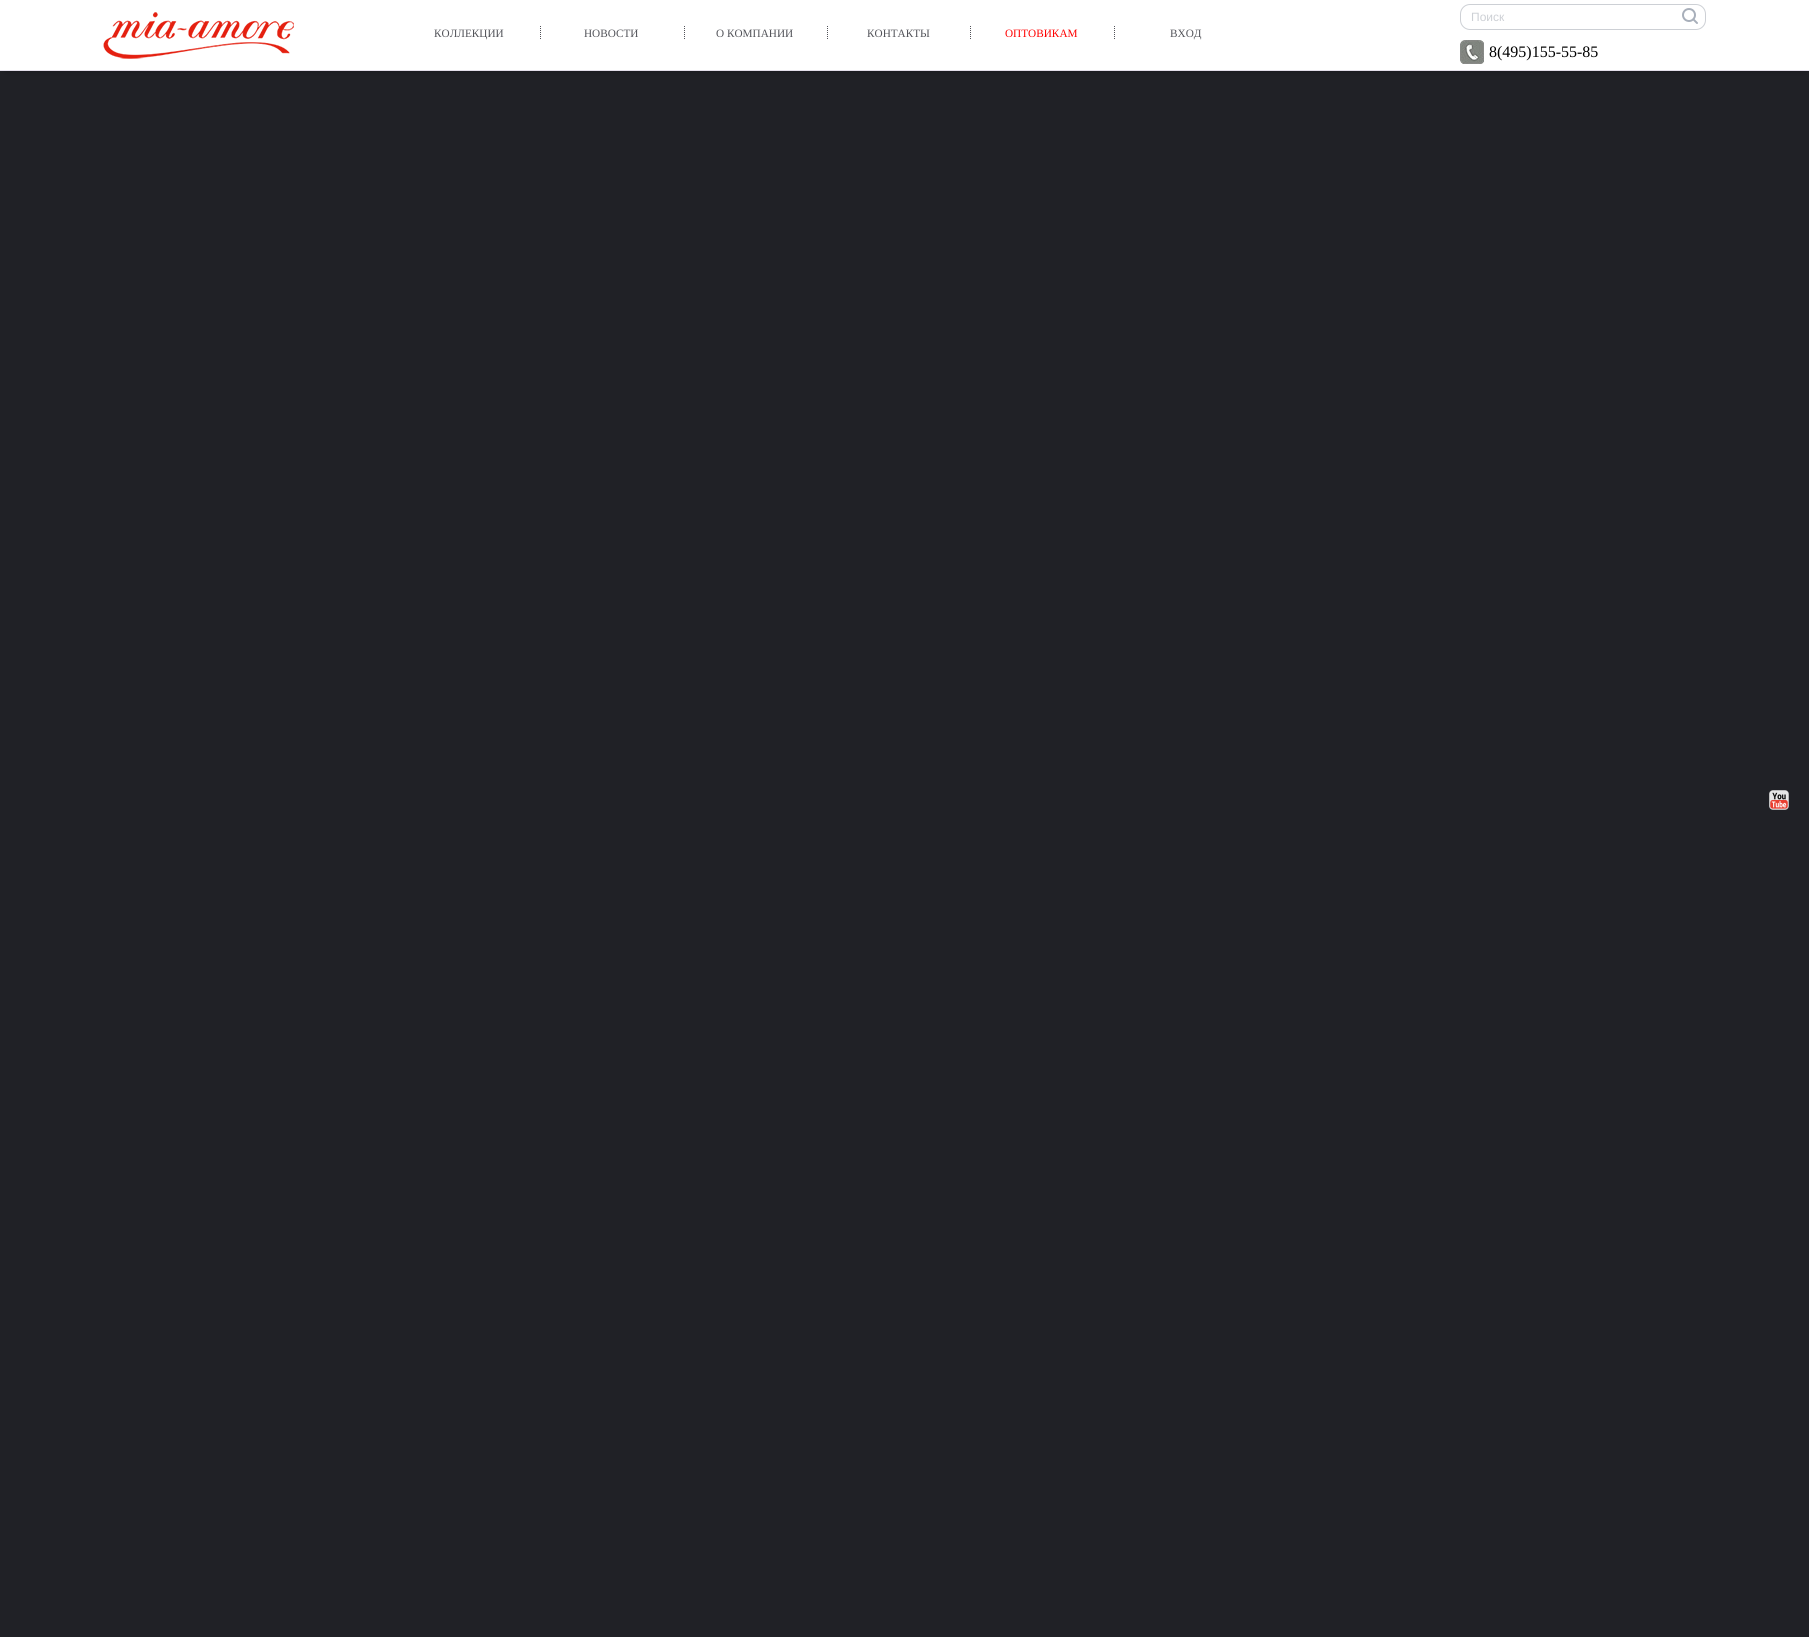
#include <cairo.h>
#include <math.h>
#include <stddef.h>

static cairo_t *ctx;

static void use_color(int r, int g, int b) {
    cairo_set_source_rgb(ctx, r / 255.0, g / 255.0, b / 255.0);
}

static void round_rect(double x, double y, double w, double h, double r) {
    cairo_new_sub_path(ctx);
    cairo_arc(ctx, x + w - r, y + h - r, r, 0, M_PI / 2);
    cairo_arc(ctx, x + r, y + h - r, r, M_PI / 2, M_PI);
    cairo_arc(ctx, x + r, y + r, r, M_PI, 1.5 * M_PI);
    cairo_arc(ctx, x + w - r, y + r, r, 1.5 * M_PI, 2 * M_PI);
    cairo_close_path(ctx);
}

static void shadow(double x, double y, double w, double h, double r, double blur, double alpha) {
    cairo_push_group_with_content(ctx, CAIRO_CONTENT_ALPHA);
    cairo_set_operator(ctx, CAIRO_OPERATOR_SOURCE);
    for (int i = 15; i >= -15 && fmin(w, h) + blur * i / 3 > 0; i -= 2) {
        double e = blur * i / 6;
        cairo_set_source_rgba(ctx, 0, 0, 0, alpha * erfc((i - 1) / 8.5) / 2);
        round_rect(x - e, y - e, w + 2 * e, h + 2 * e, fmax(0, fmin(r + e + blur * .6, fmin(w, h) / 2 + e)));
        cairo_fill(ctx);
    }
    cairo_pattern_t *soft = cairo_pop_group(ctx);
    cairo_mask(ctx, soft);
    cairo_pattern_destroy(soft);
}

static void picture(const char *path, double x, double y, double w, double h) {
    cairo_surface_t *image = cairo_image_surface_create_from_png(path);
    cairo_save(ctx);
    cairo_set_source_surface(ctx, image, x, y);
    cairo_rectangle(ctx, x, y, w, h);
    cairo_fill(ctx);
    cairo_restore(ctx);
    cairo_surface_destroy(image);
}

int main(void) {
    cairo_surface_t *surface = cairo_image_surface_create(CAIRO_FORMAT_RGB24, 1809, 1637);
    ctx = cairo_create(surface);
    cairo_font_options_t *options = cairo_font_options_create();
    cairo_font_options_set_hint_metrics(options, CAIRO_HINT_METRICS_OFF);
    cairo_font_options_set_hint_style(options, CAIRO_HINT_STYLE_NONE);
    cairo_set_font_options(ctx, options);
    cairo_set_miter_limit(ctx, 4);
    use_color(32, 33, 38);
    cairo_paint(ctx);
    use_color(0, 0, 0);
    shadow(6, 6, 1799, 61, 0, 4, 1);
    use_color(255, 255, 255);
    cairo_rectangle(ctx, 0, 0, 1809, 70);
    cairo_fill(ctx);
    use_color(227, 223, 234);
    cairo_rectangle(ctx, 0, 70, 1809, 1);
    cairo_fill(ctx);
    picture("img1.png", 103, 12, 191, 47);
    cairo_new_path(ctx);
    cairo_move_to(ctx, 540.5, 26);
    cairo_line_to(ctx, 540.5, 40);
    use_color(82, 83, 89);
    cairo_set_line_width(ctx, 1);
    cairo_set_dash(ctx, (double[]){1, 1}, 2, 0);
    cairo_stroke(ctx);
    cairo_select_font_face(ctx, "Liberation Serif", CAIRO_FONT_SLANT_NORMAL, CAIRO_FONT_WEIGHT_NORMAL);
    cairo_set_font_size(ctx, 11.25);
    cairo_move_to(ctx, 434, 37);
    cairo_show_text(ctx, "КОЛЛЕКЦИИ");
    cairo_new_path(ctx);
    cairo_move_to(ctx, 684.5, 26);
    cairo_line_to(ctx, 684.5, 40);
    cairo_stroke(ctx);
    cairo_move_to(ctx, 584, 37);
    cairo_show_text(ctx, "НОВОСТИ");
    cairo_new_path(ctx);
    cairo_move_to(ctx, 827.5, 26);
    cairo_line_to(ctx, 827.5, 40);
    cairo_stroke(ctx);
    cairo_move_to(ctx, 716, 37);
    cairo_show_text(ctx, "О КОМПАНИИ");
    cairo_new_path(ctx);
    cairo_move_to(ctx, 970.5, 26);
    cairo_line_to(ctx, 970.5, 40);
    cairo_stroke(ctx);
    cairo_move_to(ctx, 867, 37);
    cairo_show_text(ctx, "КОНТАКТЫ");
    cairo_new_path(ctx);
    cairo_move_to(ctx, 1114.5, 26);
    cairo_line_to(ctx, 1114.5, 40);
    cairo_stroke(ctx);
    use_color(255, 0, 0);
    cairo_move_to(ctx, 1005, 37);
    cairo_show_text(ctx, "ОПТОВИКАМ");
    use_color(82, 83, 89);
    cairo_move_to(ctx, 1170, 37);
    cairo_show_text(ctx, "ВХОД");
    round_rect(1460.5, 4.5, 245, 25, 9.5);
    use_color(205, 208, 213);
    cairo_set_dash(ctx, NULL, 0, 0);
    cairo_stroke(ctx);
    cairo_select_font_face(ctx, "Liberation Sans", CAIRO_FONT_SLANT_NORMAL, CAIRO_FONT_WEIGHT_NORMAL);
    cairo_set_font_size(ctx, 12);
    cairo_move_to(ctx, 1471, 21);
    cairo_show_text(ctx, "Поиск");
    picture("img2.png", 1682, 8, 16, 16);
    picture("img3.png", 1460, 40, 24, 24);
    cairo_select_font_face(ctx, "Liberation Serif", CAIRO_FONT_SLANT_NORMAL, CAIRO_FONT_WEIGHT_NORMAL);
    cairo_set_font_size(ctx, 16);
    use_color(0, 0, 0);
    cairo_move_to(ctx, 1489, 57);
    cairo_show_text(ctx, "8(495)155-55-85");
    picture("img4.png", 1769, 790, 20, 20);
    cairo_surface_write_to_png(surface, "result.png");
    cairo_font_options_destroy(options);
    cairo_destroy(ctx);
    cairo_surface_destroy(surface);
    return 0;
}
